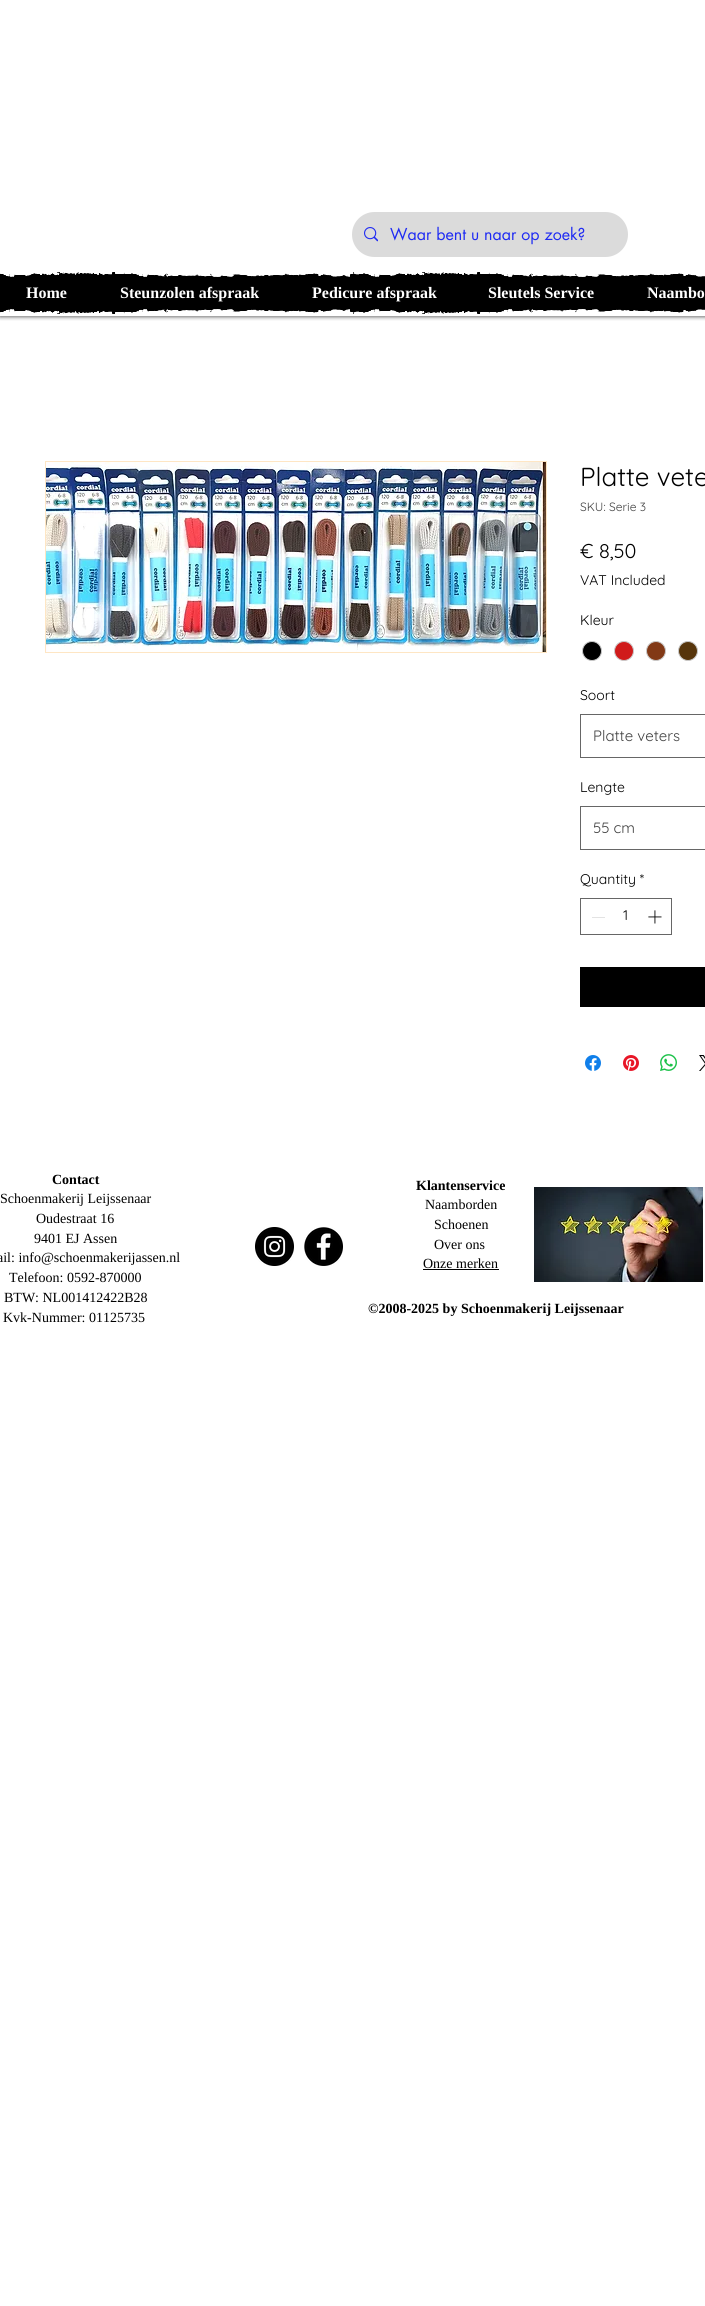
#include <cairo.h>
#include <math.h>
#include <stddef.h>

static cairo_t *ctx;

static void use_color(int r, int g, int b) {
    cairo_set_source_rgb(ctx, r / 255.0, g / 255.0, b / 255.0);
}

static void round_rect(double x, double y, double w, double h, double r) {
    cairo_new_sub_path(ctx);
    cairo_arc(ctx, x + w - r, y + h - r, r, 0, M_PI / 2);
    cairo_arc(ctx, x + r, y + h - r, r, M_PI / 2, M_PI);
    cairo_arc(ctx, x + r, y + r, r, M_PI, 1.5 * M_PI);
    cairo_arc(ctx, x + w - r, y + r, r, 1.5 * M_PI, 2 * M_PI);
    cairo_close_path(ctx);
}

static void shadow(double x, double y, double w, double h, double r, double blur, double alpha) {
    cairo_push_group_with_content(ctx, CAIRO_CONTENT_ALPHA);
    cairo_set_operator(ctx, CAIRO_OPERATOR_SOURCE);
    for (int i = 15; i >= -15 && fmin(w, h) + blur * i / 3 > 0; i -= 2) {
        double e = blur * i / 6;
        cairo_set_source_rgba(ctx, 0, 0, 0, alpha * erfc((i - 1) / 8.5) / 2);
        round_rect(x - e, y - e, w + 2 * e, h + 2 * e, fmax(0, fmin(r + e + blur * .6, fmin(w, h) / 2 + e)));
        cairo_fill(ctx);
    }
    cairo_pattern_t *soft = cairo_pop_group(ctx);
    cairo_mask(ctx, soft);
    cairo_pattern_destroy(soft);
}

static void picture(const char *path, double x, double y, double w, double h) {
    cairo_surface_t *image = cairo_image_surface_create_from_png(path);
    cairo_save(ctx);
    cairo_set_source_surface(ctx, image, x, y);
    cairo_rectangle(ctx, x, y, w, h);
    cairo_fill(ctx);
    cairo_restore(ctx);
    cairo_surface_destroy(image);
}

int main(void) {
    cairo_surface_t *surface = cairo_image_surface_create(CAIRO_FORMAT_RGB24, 705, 2306);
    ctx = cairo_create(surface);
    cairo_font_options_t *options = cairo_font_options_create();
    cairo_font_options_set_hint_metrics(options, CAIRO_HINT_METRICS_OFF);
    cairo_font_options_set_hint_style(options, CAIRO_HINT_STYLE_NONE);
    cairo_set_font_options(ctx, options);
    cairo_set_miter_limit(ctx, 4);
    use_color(255, 255, 255);
    cairo_paint(ctx);
    cairo_save(ctx);
    cairo_rectangle(ctx, 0, 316, 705, 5);
    cairo_clip(ctx);
    use_color(0, 0, 0);
    shadow(0, 1, 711, 316, 0, 2, 0.6);
    cairo_restore(ctx);
    use_color(219, 219, 219);
    round_rect(352, 212, 276, 45, 22.5);
    cairo_fill(ctx);
    picture("img1.png", 364, 227, 14, 15);
    cairo_select_font_face(ctx, "futura", CAIRO_FONT_SLANT_NORMAL, CAIRO_FONT_WEIGHT_NORMAL);
    cairo_set_font_size(ctx, 16);
    use_color(31, 43, 243);
    cairo_move_to(ctx, 390, 240);
    cairo_show_text(ctx, "Waar bent u naar op zoek?");
    picture("img2.png", 0, 272, 705, 7);
    use_color(0, 0, 0);
    cairo_rectangle(ctx, 0, 279, 705, 28);
    cairo_fill(ctx);
    cairo_select_font_face(ctx, "Liberation Serif", CAIRO_FONT_SLANT_NORMAL, CAIRO_FONT_WEIGHT_BOLD);
    use_color(255, 255, 255);
    cairo_move_to(ctx, 26, 298);
    cairo_show_text(ctx, "Home");
    cairo_move_to(ctx, 120, 298);
    cairo_show_text(ctx, "Steunzolen afspraak");
    cairo_move_to(ctx, 312, 298);
    cairo_show_text(ctx, "Pedicure afspraak");
    cairo_move_to(ctx, 488, 298);
    cairo_show_text(ctx, "Sleutels Service");
    cairo_move_to(ctx, 647, 298);
    cairo_show_text(ctx, "Naambo");
    picture("img3.png", 0, 307, 705, 7);
    cairo_rectangle(ctx, 45.5, 461.5, 501, 191);
    use_color(254, 230, 196);
    cairo_set_line_width(ctx, 1);
    cairo_stroke(ctx);
    picture("img4.png", 46, 462, 500, 190);
    cairo_select_font_face(ctx, "Quicksand", CAIRO_FONT_SLANT_NORMAL, CAIRO_FONT_WEIGHT_NORMAL);
    cairo_set_font_size(ctx, 26);
    use_color(0, 0, 0);
    cairo_move_to(ctx, 580, 486);
    cairo_show_text(ctx, "Platte vete");
    cairo_set_font_size(ctx, 12);
    use_color(64, 64, 64);
    cairo_move_to(ctx, 580, 511);
    cairo_show_text(ctx, "SKU: Serie 3");
    cairo_set_font_size(ctx, 20);
    use_color(0, 0, 0);
    cairo_move_to(ctx, 580, 558);
    cairo_show_text(ctx, "€ 8,50");
    cairo_set_font_size(ctx, 14);
    cairo_move_to(ctx, 580, 585);
    cairo_show_text(ctx, "VAT Included");
    cairo_move_to(ctx, 580, 625);
    cairo_show_text(ctx, "Kleur");
    cairo_new_path(ctx);
    cairo_arc(ctx, 592, 651, 9.5, 0, 2 * M_PI);
    cairo_fill_preserve(ctx);
    use_color(201, 201, 201);
    cairo_stroke(ctx);
    use_color(208, 27, 27);
    cairo_arc(ctx, 624, 651, 9.5, 0, 2 * M_PI);
    cairo_fill_preserve(ctx);
    use_color(201, 201, 201);
    cairo_stroke(ctx);
    use_color(130, 57, 22);
    cairo_arc(ctx, 656, 651, 9.5, 0, 2 * M_PI);
    cairo_fill_preserve(ctx);
    use_color(201, 201, 201);
    cairo_stroke(ctx);
    use_color(87, 53, 11);
    cairo_arc(ctx, 688, 651, 9.5, 0, 2 * M_PI);
    cairo_fill_preserve(ctx);
    use_color(201, 201, 201);
    cairo_stroke(ctx);
    use_color(0, 0, 0);
    cairo_move_to(ctx, 580, 700);
    cairo_show_text(ctx, "Soort");
    cairo_rectangle(ctx, 580.5, 714.5, 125, 43);
    use_color(102, 102, 102);
    cairo_stroke(ctx);
    cairo_set_font_size(ctx, 15);
    use_color(64, 64, 64);
    cairo_move_to(ctx, 593, 741);
    cairo_show_text(ctx, "Platte veters");
    cairo_set_font_size(ctx, 14);
    use_color(0, 0, 0);
    cairo_move_to(ctx, 580, 792);
    cairo_show_text(ctx, "Lengte");
    cairo_rectangle(ctx, 580.5, 806.5, 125, 43);
    use_color(102, 102, 102);
    cairo_stroke(ctx);
    cairo_set_font_size(ctx, 15);
    use_color(64, 64, 64);
    cairo_move_to(ctx, 593, 833);
    cairo_show_text(ctx, "55 cm");
    cairo_set_font_size(ctx, 14);
    use_color(0, 0, 0);
    cairo_move_to(ctx, 580, 884);
    cairo_show_text(ctx, "Quantity *");
    cairo_rectangle(ctx, 580.5, 898.5, 91, 36);
    use_color(102, 102, 102);
    cairo_stroke(ctx);
    use_color(227, 227, 227);
    cairo_rectangle(ctx, 592, 917, 13, 1);
    cairo_fill(ctx);
    use_color(0, 0, 0);
    cairo_move_to(ctx, 623, 920);
    cairo_show_text(ctx, "1");
    picture("img5.png", 648, 910, 14, 14);
    cairo_rectangle(ctx, 580, 967, 125, 40);
    cairo_fill(ctx);
    picture("img6.png", 585, 1055, 16, 16);
    picture("img7.png", 623, 1055, 16, 16);
    picture("img8.png", 660, 1054, 17, 17);
    picture("img9.png", 699, 1055, 6, 16);
    cairo_select_font_face(ctx, "Liberation Serif", CAIRO_FONT_SLANT_NORMAL, CAIRO_FONT_WEIGHT_BOLD);
    cairo_move_to(ctx, 52, 1184);
    cairo_show_text(ctx, "Contact");
    cairo_select_font_face(ctx, "Liberation Serif", CAIRO_FONT_SLANT_NORMAL, CAIRO_FONT_WEIGHT_NORMAL);
    cairo_move_to(ctx, 0, 1203);
    cairo_show_text(ctx, "Schoenmakerij Leijssenaar");
    cairo_move_to(ctx, 36, 1223);
    cairo_show_text(ctx, "Oudestraat 16");
    cairo_move_to(ctx, 34, 1243);
    cairo_show_text(ctx, "9401 EJ Assen");
    cairo_move_to(ctx, -3, 1262);
    cairo_show_text(ctx, "ail: info@schoenmakerijassen.nl");
    cairo_move_to(ctx, 9, 1282);
    cairo_show_text(ctx, "Telefoon: 0592-870000");
    cairo_move_to(ctx, 4, 1302);
    cairo_show_text(ctx, "BTW: NL001412422B28");
    cairo_move_to(ctx, 3, 1322);
    cairo_show_text(ctx, "Kvk-Nummer: 01125735");
    picture("img10.png", 255, 1227, 39, 39);
    picture("img11.png", 304, 1227, 39, 39);
    cairo_select_font_face(ctx, "Liberation Serif", CAIRO_FONT_SLANT_NORMAL, CAIRO_FONT_WEIGHT_BOLD);
    cairo_move_to(ctx, 416, 1190);
    cairo_show_text(ctx, "Klantenservice");
    cairo_select_font_face(ctx, "Liberation Serif", CAIRO_FONT_SLANT_NORMAL, CAIRO_FONT_WEIGHT_NORMAL);
    cairo_move_to(ctx, 425, 1209);
    cairo_show_text(ctx, "Naamborden");
    cairo_move_to(ctx, 434, 1229);
    cairo_show_text(ctx, "Schoenen");
    cairo_move_to(ctx, 434, 1249);
    cairo_show_text(ctx, "Over ons");
    cairo_move_to(ctx, 423, 1268);
    cairo_show_text(ctx, "Onze merken");
    cairo_rectangle(ctx, 423, 1269, 76, 1);
    cairo_fill(ctx);
    picture("img12.png", 534, 1187, 169, 95);
    cairo_select_font_face(ctx, "Liberation Serif", CAIRO_FONT_SLANT_NORMAL, CAIRO_FONT_WEIGHT_BOLD);
    cairo_move_to(ctx, 368, 1313);
    cairo_show_text(ctx, "©2008-2025 by Schoenmakerij Leijssenaar");
    cairo_surface_write_to_png(surface, "result.png");
    cairo_font_options_destroy(options);
    cairo_destroy(ctx);
    cairo_surface_destroy(surface);
    return 0;
}
